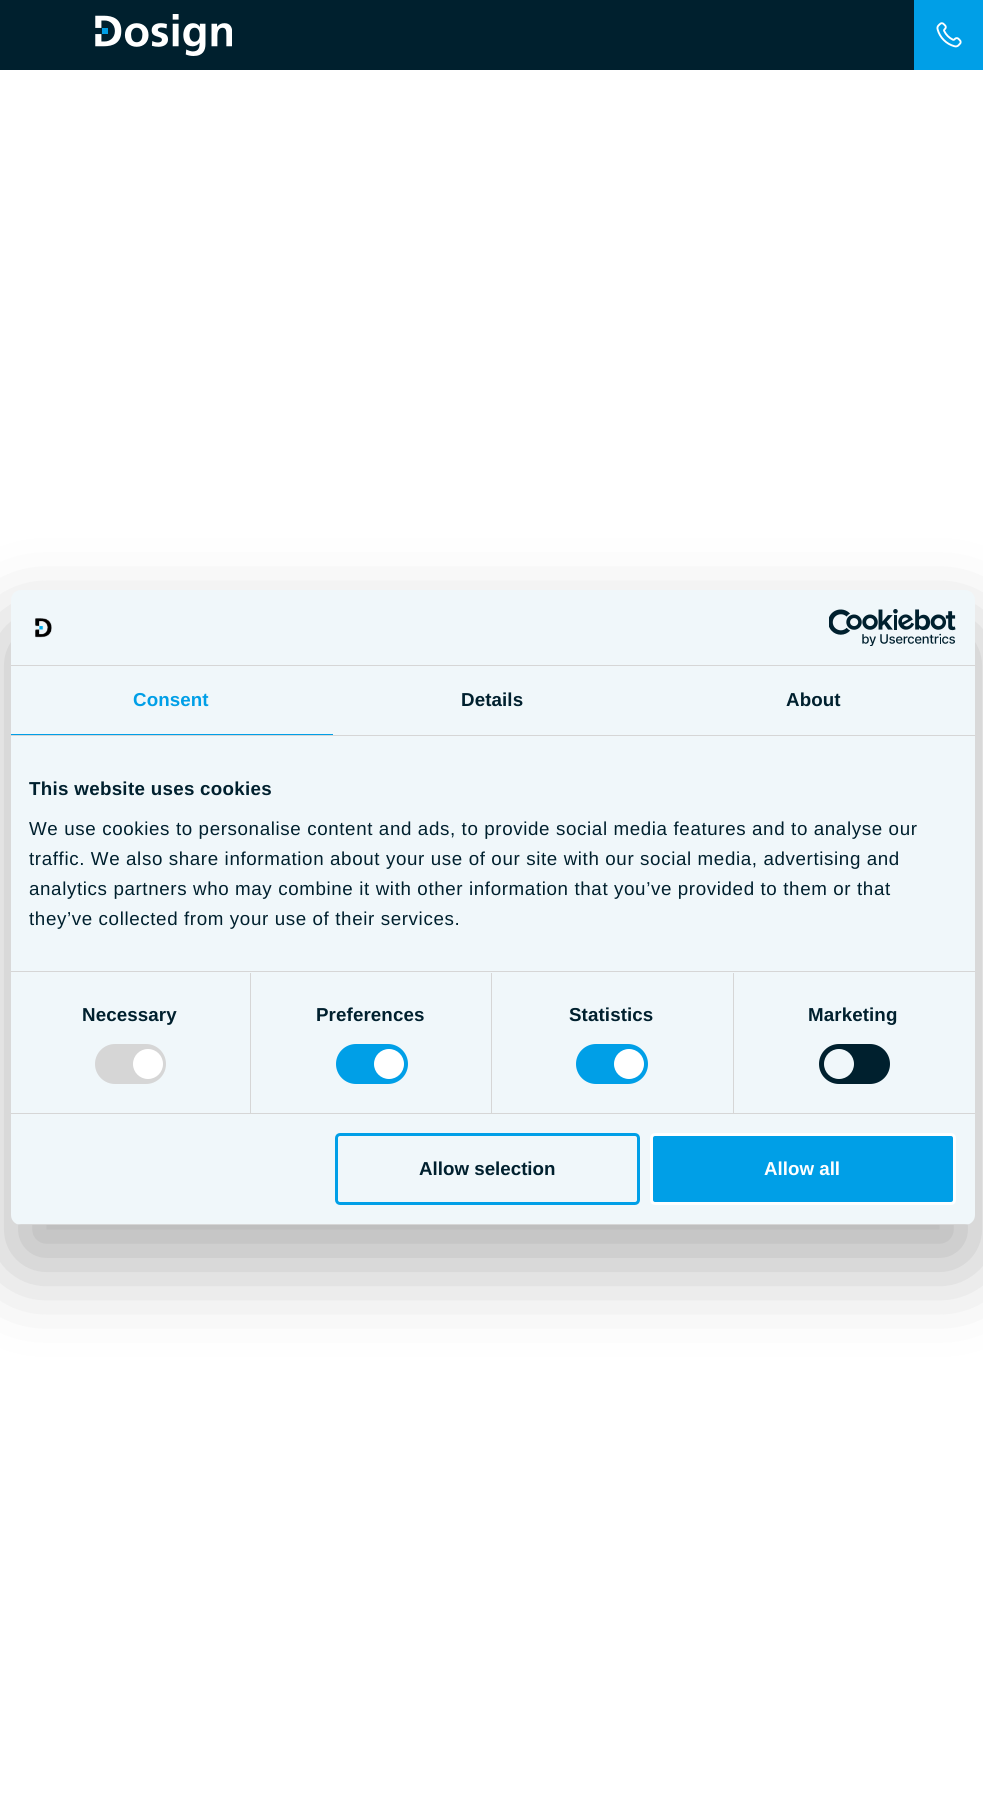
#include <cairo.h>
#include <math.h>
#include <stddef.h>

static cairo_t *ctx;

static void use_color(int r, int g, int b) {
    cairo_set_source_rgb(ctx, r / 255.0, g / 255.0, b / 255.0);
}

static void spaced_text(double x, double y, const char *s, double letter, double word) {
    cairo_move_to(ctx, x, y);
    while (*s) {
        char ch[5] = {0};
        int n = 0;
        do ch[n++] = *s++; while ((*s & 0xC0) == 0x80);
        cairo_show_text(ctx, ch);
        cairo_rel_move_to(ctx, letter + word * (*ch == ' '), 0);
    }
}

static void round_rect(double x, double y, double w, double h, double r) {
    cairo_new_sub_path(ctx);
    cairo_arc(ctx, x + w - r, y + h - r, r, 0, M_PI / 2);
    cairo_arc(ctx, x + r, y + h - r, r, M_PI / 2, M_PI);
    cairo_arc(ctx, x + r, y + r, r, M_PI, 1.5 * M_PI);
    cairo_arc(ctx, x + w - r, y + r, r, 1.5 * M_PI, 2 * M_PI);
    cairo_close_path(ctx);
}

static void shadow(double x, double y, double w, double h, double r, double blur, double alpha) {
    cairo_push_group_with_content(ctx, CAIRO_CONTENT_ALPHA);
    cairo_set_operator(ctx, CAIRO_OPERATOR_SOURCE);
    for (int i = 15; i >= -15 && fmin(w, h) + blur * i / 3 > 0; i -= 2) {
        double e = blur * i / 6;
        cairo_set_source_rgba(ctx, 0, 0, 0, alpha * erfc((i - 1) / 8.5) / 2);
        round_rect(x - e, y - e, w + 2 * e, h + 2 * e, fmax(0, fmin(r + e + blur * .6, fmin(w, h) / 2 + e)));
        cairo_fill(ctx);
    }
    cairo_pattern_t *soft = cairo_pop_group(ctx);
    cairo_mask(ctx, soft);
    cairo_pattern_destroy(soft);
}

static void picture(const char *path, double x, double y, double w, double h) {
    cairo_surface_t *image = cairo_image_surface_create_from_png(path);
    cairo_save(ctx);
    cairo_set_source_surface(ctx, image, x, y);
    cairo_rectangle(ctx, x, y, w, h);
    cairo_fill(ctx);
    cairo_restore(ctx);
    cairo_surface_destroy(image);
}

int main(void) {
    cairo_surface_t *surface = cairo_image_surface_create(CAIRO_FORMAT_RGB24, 983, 1815);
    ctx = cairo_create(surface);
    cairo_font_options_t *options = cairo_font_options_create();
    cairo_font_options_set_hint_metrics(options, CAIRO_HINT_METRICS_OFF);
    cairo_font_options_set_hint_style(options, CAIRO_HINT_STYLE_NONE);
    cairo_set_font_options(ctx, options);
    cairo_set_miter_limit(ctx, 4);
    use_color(255, 255, 255);
    cairo_paint(ctx);
    use_color(0, 32, 46);
    cairo_rectangle(ctx, 0, 0, 914, 70);
    cairo_fill(ctx);
    picture("img1.png", 95, 14, 137, 42);
    use_color(0, 159, 231);
    cairo_rectangle(ctx, 914, 0, 69, 70);
    cairo_fill(ctx);
    picture("img2.png", 936, 22, 26, 26);
    use_color(0, 0, 0);
    shadow(11, 630, 964, 635, 10, 42.5, 0.3);
    use_color(240, 247, 250);
    round_rect(11, 590, 964, 635, 10);
    cairo_fill(ctx);
    use_color(214, 214, 214);
    cairo_rectangle(ctx, 11, 665, 964, 1);
    cairo_fill(ctx);
    picture("img3.png", 35, 618, 17, 20);
    picture("img4.png", 829, 609, 127, 37);
    cairo_rectangle(ctx, 11, 735, 964, 1);
    cairo_fill(ctx);
    use_color(0, 159, 231);
    cairo_rectangle(ctx, 11, 734, 322, 1);
    cairo_fill(ctx);
    cairo_select_font_face(ctx, "Liberation Sans", CAIRO_FONT_SLANT_NORMAL, CAIRO_FONT_WEIGHT_BOLD);
    cairo_set_font_size(ctx, 18.75);
    spaced_text(133, 706, "Consent", 0.1, 0);
    use_color(0, 32, 46);
    spaced_text(461, 706, "Details", 0.1, 0);
    spaced_text(786, 706, "About", 0.1, 0);
    use_color(214, 214, 214);
    cairo_rectangle(ctx, 11, 971, 964, 1);
    cairo_fill(ctx);
    use_color(0, 32, 46);
    spaced_text(29, 795, "This website uses cookies", 0.3, 0);
    cairo_select_font_face(ctx, "Liberation Sans", CAIRO_FONT_SLANT_NORMAL, CAIRO_FONT_WEIGHT_NORMAL);
    spaced_text(29, 835, "We use cookies to personalise content and ads, to provide social media features and to analyse our", 0.62, 0);
    spaced_text(29, 865, "traffic. We also share information about your use of our site with our social media, advertising and", 0.62, 0);
    spaced_text(29, 895, "analytics partners who may combine it with other information that you’ve provided to them or that", 0.62, 0);
    spaced_text(29, 925, "they’ve collected from your use of their services.", 0.62, 0);
    use_color(214, 214, 214);
    cairo_rectangle(ctx, 11, 1113, 964, 1);
    cairo_fill(ctx);
    cairo_rectangle(ctx, 250, 973, 1, 140);
    cairo_fill(ctx);
    cairo_select_font_face(ctx, "Liberation Sans", CAIRO_FONT_SLANT_NORMAL, CAIRO_FONT_WEIGHT_BOLD);
    use_color(0, 32, 46);
    spaced_text(82, 1021, "Necessary", 0.1, 0);
    use_color(214, 214, 214);
    round_rect(95, 1044, 71, 40, 20);
    cairo_fill(ctx);
    use_color(255, 255, 255);
    cairo_arc(ctx, 148, 1064, 15, 0, 2 * M_PI);
    cairo_fill(ctx);
    use_color(214, 214, 214);
    cairo_rectangle(ctx, 491, 973, 1, 140);
    cairo_fill(ctx);
    use_color(0, 32, 46);
    spaced_text(316, 1021, "Preferences", 0.1, 0);
    use_color(0, 159, 231);
    round_rect(336, 1044, 72, 40, 20);
    cairo_fill(ctx);
    use_color(255, 255, 255);
    cairo_arc(ctx, 389, 1064, 15, 0, 2 * M_PI);
    cairo_fill(ctx);
    use_color(214, 214, 214);
    cairo_rectangle(ctx, 733, 973, 1, 140);
    cairo_fill(ctx);
    use_color(0, 32, 46);
    spaced_text(569, 1021, "Statistics", 0.1, 0);
    use_color(0, 159, 231);
    round_rect(576, 1044, 72, 40, 20);
    cairo_fill(ctx);
    use_color(255, 255, 255);
    cairo_arc(ctx, 629, 1064, 15, 0, 2 * M_PI);
    cairo_fill(ctx);
    use_color(0, 32, 46);
    spaced_text(808, 1021, "Marketing", 0.1, 0);
    round_rect(819, 1044, 71, 40, 20);
    cairo_fill(ctx);
    use_color(240, 247, 250);
    cairo_arc(ctx, 839, 1064, 15, 0, 2 * M_PI);
    cairo_fill(ctx);
    cairo_save(ctx);
    round_rect(11, 590, 964, 635, 10);
    cairo_clip(ctx);
    use_color(214, 214, 214);
    cairo_rectangle(ctx, 11, 1224, 964, 1);
    cairo_fill(ctx);
    cairo_restore(ctx);
    round_rect(336.5, 1134.5, 302, 69, 3.5);
    use_color(0, 159, 231);
    cairo_set_line_width(ctx, 3);
    cairo_stroke(ctx);
    use_color(0, 32, 46);
    cairo_move_to(ctx, 419, 1175);
    cairo_show_text(ctx, "Allow selection");
    use_color(0, 159, 231);
    round_rect(651.5, 1134.5, 303, 69, 3.5);
    cairo_fill_preserve(ctx);
    use_color(255, 255, 255);
    cairo_stroke(ctx);
    cairo_move_to(ctx, 764, 1175);
    cairo_show_text(ctx, "Allow all");
    cairo_surface_write_to_png(surface, "result.png");
    cairo_font_options_destroy(options);
    cairo_destroy(ctx);
    cairo_surface_destroy(surface);
    return 0;
}
